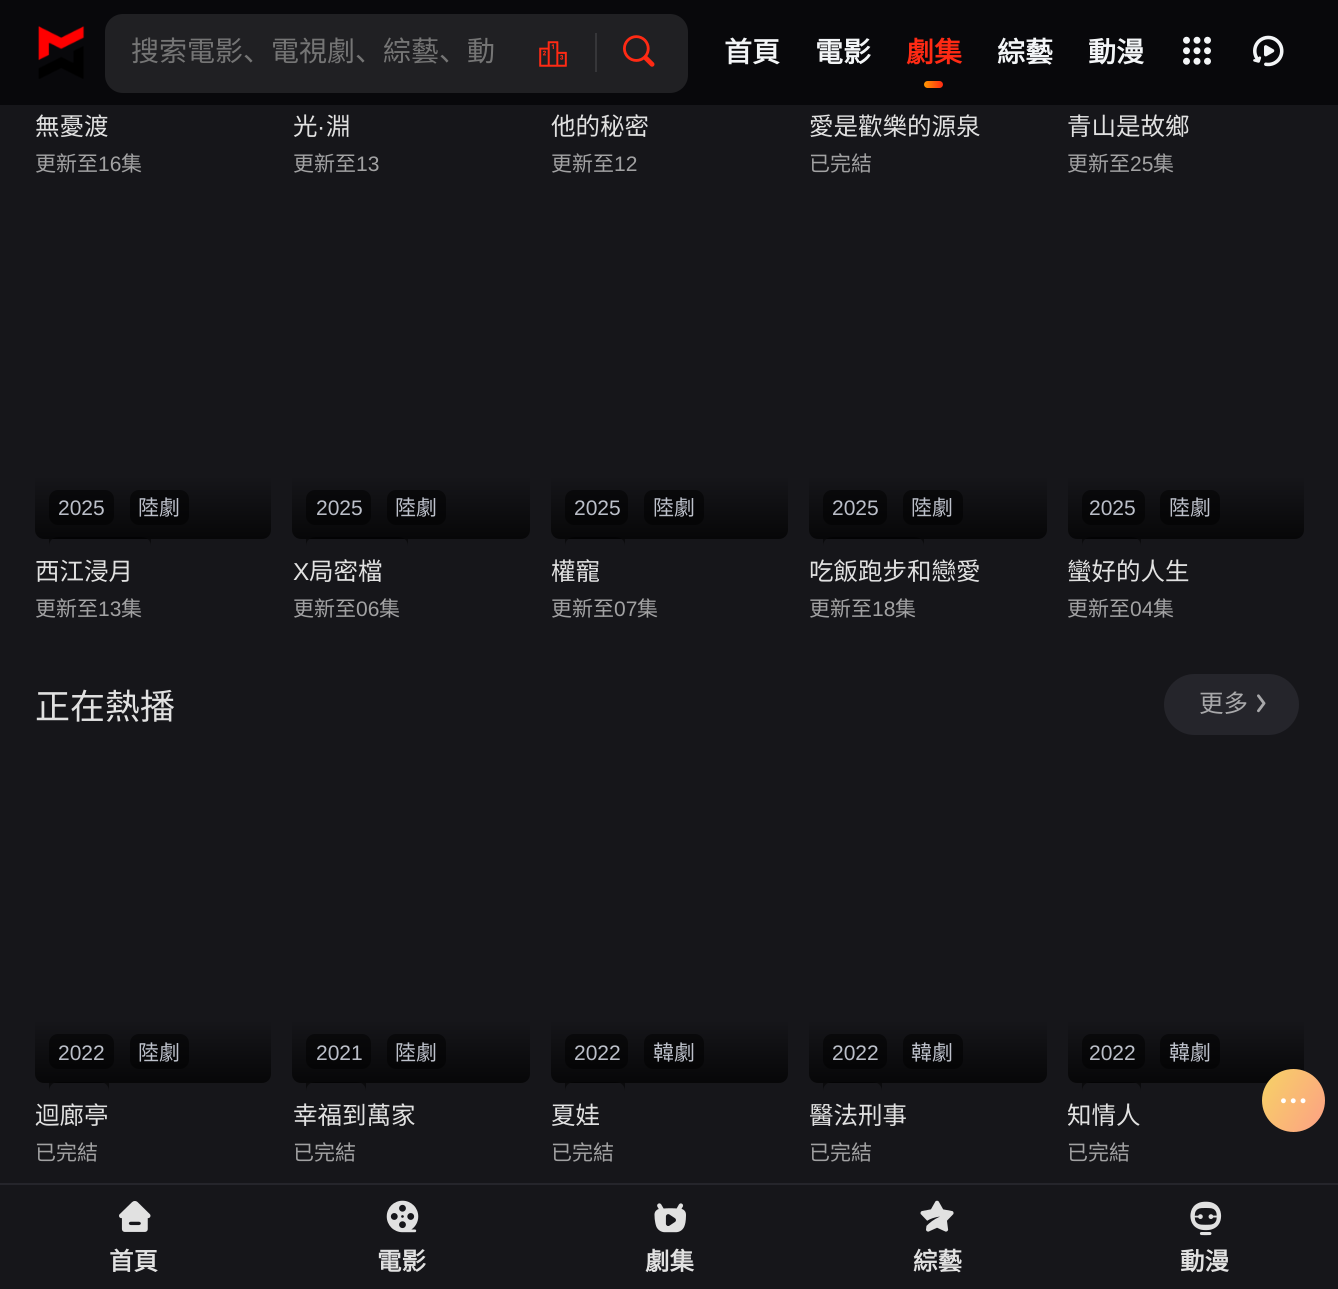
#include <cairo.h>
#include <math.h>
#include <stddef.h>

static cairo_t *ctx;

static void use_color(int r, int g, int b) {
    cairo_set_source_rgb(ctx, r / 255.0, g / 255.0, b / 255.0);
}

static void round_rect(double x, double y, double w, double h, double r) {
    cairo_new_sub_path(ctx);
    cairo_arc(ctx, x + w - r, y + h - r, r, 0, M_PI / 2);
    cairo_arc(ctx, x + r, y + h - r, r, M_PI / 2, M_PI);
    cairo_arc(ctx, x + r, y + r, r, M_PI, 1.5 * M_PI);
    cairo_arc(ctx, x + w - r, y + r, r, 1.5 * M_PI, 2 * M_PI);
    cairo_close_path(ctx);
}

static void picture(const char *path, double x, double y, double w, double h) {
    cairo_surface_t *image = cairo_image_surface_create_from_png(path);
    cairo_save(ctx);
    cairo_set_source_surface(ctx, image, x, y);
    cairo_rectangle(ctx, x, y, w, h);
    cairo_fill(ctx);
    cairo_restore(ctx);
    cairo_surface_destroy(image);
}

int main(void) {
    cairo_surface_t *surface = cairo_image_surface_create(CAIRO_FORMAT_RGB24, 1338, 1289);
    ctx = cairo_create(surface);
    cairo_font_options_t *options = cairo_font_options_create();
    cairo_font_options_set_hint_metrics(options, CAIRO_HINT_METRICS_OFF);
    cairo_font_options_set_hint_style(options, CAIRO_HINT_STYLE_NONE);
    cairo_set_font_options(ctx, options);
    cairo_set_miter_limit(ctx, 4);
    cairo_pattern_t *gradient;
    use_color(22, 22, 26);
    cairo_paint(ctx);
    use_color(8, 8, 11);
    cairo_rectangle(ctx, 0, 0, 1338, 105);
    cairo_fill(ctx);
    picture("img1.png", 38, 26, 47, 53);
    cairo_set_source_rgba(ctx, 1, 1, 1, 0.1);
    cairo_new_path(ctx);
    cairo_move_to(ctx, 123, 14);
    cairo_line_to(ctx, 520, 14);
    cairo_line_to(ctx, 520, 93);
    cairo_line_to(ctx, 123, 93);
    cairo_curve_to(ctx, 113, 93, 105, 85, 105, 75);
    cairo_line_to(ctx, 105, 32);
    cairo_curve_to(ctx, 105, 22, 113, 14, 123, 14);
    cairo_close_path(ctx);
    cairo_fill(ctx);
    cairo_select_font_face(ctx, "Noto Sans CJK SC", CAIRO_FONT_SLANT_NORMAL, CAIRO_FONT_WEIGHT_NORMAL);
    cairo_set_font_size(ctx, 28);
    use_color(117, 117, 117);
    cairo_move_to(ctx, 131, 61);
    cairo_show_text(ctx, "搜索電影、電視劇、綜藝、動");
    cairo_set_source_rgba(ctx, 1, 1, 1, 0.1);
    cairo_rectangle(ctx, 520, 14, 103, 79);
    cairo_fill(ctx);
    picture("img2.png", 539, 41, 28, 26);
    cairo_rectangle(ctx, 595, 33, 2, 39);
    cairo_fill(ctx);
    cairo_new_path(ctx);
    cairo_move_to(ctx, 623, 14);
    cairo_line_to(ctx, 670, 14);
    cairo_curve_to(ctx, 680, 14, 688, 22, 688, 32);
    cairo_line_to(ctx, 688, 75);
    cairo_curve_to(ctx, 688, 85, 680, 93, 670, 93);
    cairo_line_to(ctx, 623, 93);
    cairo_close_path(ctx);
    cairo_fill(ctx);
    picture("img3.png", 623, 35, 32, 32);
    cairo_select_font_face(ctx, "Noto Sans CJK SC", CAIRO_FONT_SLANT_NORMAL, CAIRO_FONT_WEIGHT_BOLD);
    use_color(243, 245, 247);
    cairo_move_to(ctx, 724, 62);
    cairo_show_text(ctx, "首頁");
    cairo_move_to(ctx, 815, 62);
    cairo_show_text(ctx, "電影");
    use_color(255, 42, 20);
    cairo_move_to(ctx, 906, 62);
    cairo_show_text(ctx, "劇集");
    gradient = cairo_pattern_create_linear(924, 84, 943, 84);
    cairo_pattern_add_color_stop_rgba(gradient, 0, 1, 0.596, 0, 1);
    cairo_pattern_add_color_stop_rgba(gradient, 1, 1, 0.165, 0.078, 1);
    cairo_set_source(ctx, gradient);
    cairo_pattern_destroy(gradient);
    round_rect(924, 81, 19, 7, 3.5);
    cairo_fill(ctx);
    use_color(243, 245, 247);
    cairo_move_to(ctx, 997, 62);
    cairo_show_text(ctx, "綜藝");
    cairo_move_to(ctx, 1088, 62);
    cairo_show_text(ctx, "動漫");
    picture("img4.png", 1183, 36, 28, 29);
    picture("img5.png", 1253, 35, 31, 32);
    cairo_select_font_face(ctx, "Noto Sans CJK SC", CAIRO_FONT_SLANT_NORMAL, CAIRO_FONT_WEIGHT_NORMAL);
    cairo_set_font_size(ctx, 24.5);
    use_color(225, 225, 225);
    cairo_move_to(ctx, 35, 135);
    cairo_show_text(ctx, "無憂渡");
    cairo_set_font_size(ctx, 21);
    use_color(162, 162, 163);
    cairo_move_to(ctx, 35, 171);
    cairo_show_text(ctx, "更新至");
    cairo_select_font_face(ctx, "Liberation Sans", CAIRO_FONT_SLANT_NORMAL, CAIRO_FONT_WEIGHT_NORMAL);
    cairo_move_to(ctx, 98, 171);
    cairo_show_text(ctx, "16");
    cairo_select_font_face(ctx, "Noto Sans CJK SC", CAIRO_FONT_SLANT_NORMAL, CAIRO_FONT_WEIGHT_NORMAL);
    cairo_move_to(ctx, 121, 171);
    cairo_show_text(ctx, "集");
    cairo_set_font_size(ctx, 24.5);
    use_color(225, 225, 225);
    cairo_move_to(ctx, 293, 135);
    cairo_show_text(ctx, "光");
    cairo_select_font_face(ctx, "Liberation Sans", CAIRO_FONT_SLANT_NORMAL, CAIRO_FONT_WEIGHT_NORMAL);
    cairo_move_to(ctx, 317, 135);
    cairo_show_text(ctx, "·");
    cairo_select_font_face(ctx, "Noto Sans CJK SC", CAIRO_FONT_SLANT_NORMAL, CAIRO_FONT_WEIGHT_NORMAL);
    cairo_move_to(ctx, 326, 135);
    cairo_show_text(ctx, "淵");
    cairo_set_font_size(ctx, 21);
    use_color(162, 162, 163);
    cairo_move_to(ctx, 293, 171);
    cairo_show_text(ctx, "更新至");
    cairo_select_font_face(ctx, "Liberation Sans", CAIRO_FONT_SLANT_NORMAL, CAIRO_FONT_WEIGHT_NORMAL);
    cairo_move_to(ctx, 356, 171);
    cairo_show_text(ctx, "13");
    cairo_select_font_face(ctx, "Noto Sans CJK SC", CAIRO_FONT_SLANT_NORMAL, CAIRO_FONT_WEIGHT_NORMAL);
    cairo_set_font_size(ctx, 24.5);
    use_color(225, 225, 225);
    cairo_move_to(ctx, 551, 135);
    cairo_show_text(ctx, "他的秘密");
    cairo_set_font_size(ctx, 21);
    use_color(162, 162, 163);
    cairo_move_to(ctx, 551, 171);
    cairo_show_text(ctx, "更新至");
    cairo_select_font_face(ctx, "Liberation Sans", CAIRO_FONT_SLANT_NORMAL, CAIRO_FONT_WEIGHT_NORMAL);
    cairo_move_to(ctx, 614, 171);
    cairo_show_text(ctx, "12");
    cairo_select_font_face(ctx, "Noto Sans CJK SC", CAIRO_FONT_SLANT_NORMAL, CAIRO_FONT_WEIGHT_NORMAL);
    cairo_set_font_size(ctx, 24.5);
    use_color(225, 225, 225);
    cairo_move_to(ctx, 809, 135);
    cairo_show_text(ctx, "愛是歡樂的源泉");
    cairo_set_font_size(ctx, 21);
    use_color(162, 162, 163);
    cairo_move_to(ctx, 809, 171);
    cairo_show_text(ctx, "已完結");
    cairo_set_font_size(ctx, 24.5);
    use_color(225, 225, 225);
    cairo_move_to(ctx, 1067, 135);
    cairo_show_text(ctx, "青山是故鄉");
    cairo_set_font_size(ctx, 21);
    use_color(162, 162, 163);
    cairo_move_to(ctx, 1067, 171);
    cairo_show_text(ctx, "更新至");
    cairo_select_font_face(ctx, "Liberation Sans", CAIRO_FONT_SLANT_NORMAL, CAIRO_FONT_WEIGHT_NORMAL);
    cairo_move_to(ctx, 1130, 171);
    cairo_show_text(ctx, "25");
    cairo_select_font_face(ctx, "Noto Sans CJK SC", CAIRO_FONT_SLANT_NORMAL, CAIRO_FONT_WEIGHT_NORMAL);
    cairo_move_to(ctx, 1153, 171);
    cairo_show_text(ctx, "集");
    gradient = cairo_pattern_create_linear(153, 539, 153, 476);
    cairo_pattern_add_color_stop_rgba(gradient, 0, 0.027, 0.027, 0.031, 1);
    cairo_pattern_add_color_stop_rgba(gradient, 1, 0.086, 0.086, 0.102, 1);
    cairo_set_source(ctx, gradient);
    cairo_pattern_destroy(gradient);
    cairo_new_path(ctx);
    cairo_move_to(ctx, 35, 476);
    cairo_line_to(ctx, 271, 476);
    cairo_line_to(ctx, 271, 530);
    cairo_curve_to(ctx, 271, 535, 267, 539, 262, 539);
    cairo_line_to(ctx, 44, 539);
    cairo_curve_to(ctx, 39, 539, 35, 535, 35, 530);
    cairo_close_path(ctx);
    cairo_fill(ctx);
    cairo_set_source_rgba(ctx, 0, 0, 0, 0.51);
    round_rect(49, 490, 65, 35, 9);
    cairo_fill(ctx);
    cairo_select_font_face(ctx, "Liberation Sans", CAIRO_FONT_SLANT_NORMAL, CAIRO_FONT_WEIGHT_NORMAL);
    use_color(194, 198, 208);
    cairo_move_to(ctx, 58, 515);
    cairo_show_text(ctx, "2025");
    cairo_set_source_rgba(ctx, 0, 0, 0, 0.51);
    round_rect(130, 490, 59, 35, 9);
    cairo_fill(ctx);
    cairo_select_font_face(ctx, "Noto Sans CJK SC", CAIRO_FONT_SLANT_NORMAL, CAIRO_FONT_WEIGHT_NORMAL);
    use_color(194, 198, 208);
    cairo_move_to(ctx, 138, 515);
    cairo_show_text(ctx, "陸劇");
    cairo_set_source_rgba(ctx, 0, 0, 0, 0.51);
    cairo_new_path(ctx);
    cairo_move_to(ctx, 58, 537);
    cairo_line_to(ctx, 142, 537);
    cairo_curve_to(ctx, 147, 537, 151, 541, 151, 546);
    cairo_line_to(ctx, 151, 539);
    cairo_line_to(ctx, 49, 539);
    cairo_line_to(ctx, 49, 546);
    cairo_curve_to(ctx, 49, 541, 53, 537, 58, 537);
    cairo_close_path(ctx);
    cairo_fill(ctx);
    gradient = cairo_pattern_create_radial(0, 0, 0, 0, 0, 1);
    cairo_pattern_set_matrix(gradient, &(cairo_matrix_t){1.0 / 167, 0, 0, 1.0 / 234, -1.0 * 153 / 167, -1.0 * 374 / 234});
    cairo_pattern_add_color_stop_rgba(gradient, 0, 0, 0, 0, 0);
    cairo_pattern_add_color_stop_rgba(gradient, 0.44, 0, 0, 0, 0.01);
    cairo_pattern_add_color_stop_rgba(gradient, 1, 0, 0, 0, 0.06);
    cairo_set_source(ctx, gradient);
    cairo_pattern_destroy(gradient);
    cairo_rectangle(ctx, 59, 498, 119, 19);
    cairo_fill(ctx);
    cairo_set_font_size(ctx, 24.5);
    use_color(225, 225, 225);
    cairo_move_to(ctx, 35, 580);
    cairo_show_text(ctx, "西江浸月");
    cairo_set_font_size(ctx, 21);
    use_color(162, 162, 163);
    cairo_move_to(ctx, 35, 616);
    cairo_show_text(ctx, "更新至");
    cairo_select_font_face(ctx, "Liberation Sans", CAIRO_FONT_SLANT_NORMAL, CAIRO_FONT_WEIGHT_NORMAL);
    cairo_move_to(ctx, 98, 616);
    cairo_show_text(ctx, "13");
    cairo_select_font_face(ctx, "Noto Sans CJK SC", CAIRO_FONT_SLANT_NORMAL, CAIRO_FONT_WEIGHT_NORMAL);
    cairo_move_to(ctx, 121, 616);
    cairo_show_text(ctx, "集");
    gradient = cairo_pattern_create_linear(411, 539, 411, 476);
    cairo_pattern_add_color_stop_rgba(gradient, 0, 0.027, 0.027, 0.031, 1);
    cairo_pattern_add_color_stop_rgba(gradient, 1, 0.086, 0.086, 0.102, 1);
    cairo_set_source(ctx, gradient);
    cairo_pattern_destroy(gradient);
    cairo_new_path(ctx);
    cairo_move_to(ctx, 292, 476);
    cairo_line_to(ctx, 530, 476);
    cairo_line_to(ctx, 530, 530);
    cairo_curve_to(ctx, 530, 535, 526, 539, 521, 539);
    cairo_line_to(ctx, 301, 539);
    cairo_curve_to(ctx, 296, 539, 292, 535, 292, 530);
    cairo_close_path(ctx);
    cairo_fill(ctx);
    cairo_set_source_rgba(ctx, 0, 0, 0, 0.51);
    round_rect(306, 490, 65, 35, 9);
    cairo_fill(ctx);
    cairo_select_font_face(ctx, "Liberation Sans", CAIRO_FONT_SLANT_NORMAL, CAIRO_FONT_WEIGHT_NORMAL);
    use_color(194, 198, 208);
    cairo_move_to(ctx, 316, 515);
    cairo_show_text(ctx, "2025");
    cairo_set_source_rgba(ctx, 0, 0, 0, 0.51);
    round_rect(387, 490, 59, 35, 9);
    cairo_fill(ctx);
    cairo_select_font_face(ctx, "Noto Sans CJK SC", CAIRO_FONT_SLANT_NORMAL, CAIRO_FONT_WEIGHT_NORMAL);
    use_color(194, 198, 208);
    cairo_move_to(ctx, 395, 515);
    cairo_show_text(ctx, "陸劇");
    cairo_set_source_rgba(ctx, 0, 0, 0, 0.51);
    cairo_new_path(ctx);
    cairo_move_to(ctx, 315, 537);
    cairo_line_to(ctx, 399, 537);
    cairo_curve_to(ctx, 404, 537, 408, 541, 408, 546);
    cairo_line_to(ctx, 408, 539);
    cairo_line_to(ctx, 306, 539);
    cairo_line_to(ctx, 306, 546);
    cairo_curve_to(ctx, 306, 541, 310, 537, 315, 537);
    cairo_close_path(ctx);
    cairo_fill(ctx);
    gradient = cairo_pattern_create_radial(0, 0, 0, 0, 0, 1);
    cairo_pattern_set_matrix(gradient, &(cairo_matrix_t){1.0 / 168, 0, 0, 1.0 / 234, -1.0 * 411 / 168, -1.0 * 374 / 234});
    cairo_pattern_add_color_stop_rgba(gradient, 0, 0, 0, 0, 0);
    cairo_pattern_add_color_stop_rgba(gradient, 0.44, 0, 0, 0, 0.01);
    cairo_pattern_add_color_stop_rgba(gradient, 1, 0, 0, 0, 0.06);
    cairo_set_source(ctx, gradient);
    cairo_pattern_destroy(gradient);
    cairo_rectangle(ctx, 317, 498, 119, 19);
    cairo_fill(ctx);
    cairo_select_font_face(ctx, "Liberation Sans", CAIRO_FONT_SLANT_NORMAL, CAIRO_FONT_WEIGHT_NORMAL);
    cairo_set_font_size(ctx, 24.5);
    use_color(225, 225, 225);
    cairo_move_to(ctx, 293, 580);
    cairo_show_text(ctx, "X");
    cairo_select_font_face(ctx, "Noto Sans CJK SC", CAIRO_FONT_SLANT_NORMAL, CAIRO_FONT_WEIGHT_NORMAL);
    cairo_move_to(ctx, 309, 580);
    cairo_show_text(ctx, "局密檔");
    cairo_set_font_size(ctx, 21);
    use_color(162, 162, 163);
    cairo_move_to(ctx, 293, 616);
    cairo_show_text(ctx, "更新至");
    cairo_select_font_face(ctx, "Liberation Sans", CAIRO_FONT_SLANT_NORMAL, CAIRO_FONT_WEIGHT_NORMAL);
    cairo_move_to(ctx, 356, 616);
    cairo_show_text(ctx, "06");
    cairo_select_font_face(ctx, "Noto Sans CJK SC", CAIRO_FONT_SLANT_NORMAL, CAIRO_FONT_WEIGHT_NORMAL);
    cairo_move_to(ctx, 379, 616);
    cairo_show_text(ctx, "集");
    gradient = cairo_pattern_create_linear(669, 539, 669, 476);
    cairo_pattern_add_color_stop_rgba(gradient, 0, 0.027, 0.027, 0.031, 1);
    cairo_pattern_add_color_stop_rgba(gradient, 1, 0.086, 0.086, 0.102, 1);
    cairo_set_source(ctx, gradient);
    cairo_pattern_destroy(gradient);
    cairo_new_path(ctx);
    cairo_move_to(ctx, 551, 476);
    cairo_line_to(ctx, 788, 476);
    cairo_line_to(ctx, 788, 530);
    cairo_curve_to(ctx, 788, 535, 784, 539, 779, 539);
    cairo_line_to(ctx, 560, 539);
    cairo_curve_to(ctx, 555, 539, 551, 535, 551, 530);
    cairo_close_path(ctx);
    cairo_fill(ctx);
    cairo_set_source_rgba(ctx, 0, 0, 0, 0.51);
    round_rect(565, 490, 63, 35, 9);
    cairo_fill(ctx);
    cairo_select_font_face(ctx, "Liberation Sans", CAIRO_FONT_SLANT_NORMAL, CAIRO_FONT_WEIGHT_NORMAL);
    use_color(194, 198, 208);
    cairo_move_to(ctx, 574, 515);
    cairo_show_text(ctx, "2025");
    cairo_set_source_rgba(ctx, 0, 0, 0, 0.51);
    round_rect(644, 490, 60, 35, 9);
    cairo_fill(ctx);
    cairo_select_font_face(ctx, "Noto Sans CJK SC", CAIRO_FONT_SLANT_NORMAL, CAIRO_FONT_WEIGHT_NORMAL);
    use_color(194, 198, 208);
    cairo_move_to(ctx, 653, 515);
    cairo_show_text(ctx, "陸劇");
    cairo_set_source_rgba(ctx, 0, 0, 0, 0.51);
    cairo_new_path(ctx);
    cairo_move_to(ctx, 574, 537);
    cairo_line_to(ctx, 616, 537);
    cairo_curve_to(ctx, 621, 537, 625, 541, 625, 546);
    cairo_line_to(ctx, 625, 539);
    cairo_line_to(ctx, 565, 539);
    cairo_line_to(ctx, 565, 546);
    cairo_curve_to(ctx, 565, 541, 569, 537, 574, 537);
    cairo_close_path(ctx);
    cairo_fill(ctx);
    gradient = cairo_pattern_create_radial(0, 0, 0, 0, 0, 1);
    cairo_pattern_set_matrix(gradient, &(cairo_matrix_t){1.0 / 167, 0, 0, 1.0 / 234, -1.0 * 669 / 167, -1.0 * 374 / 234});
    cairo_pattern_add_color_stop_rgba(gradient, 0, 0, 0, 0, 0);
    cairo_pattern_add_color_stop_rgba(gradient, 0.44, 0, 0, 0, 0.01);
    cairo_pattern_add_color_stop_rgba(gradient, 1, 0, 0, 0, 0.06);
    cairo_set_source(ctx, gradient);
    cairo_pattern_destroy(gradient);
    cairo_rectangle(ctx, 574, 498, 120, 19);
    cairo_fill(ctx);
    cairo_set_font_size(ctx, 24.5);
    use_color(225, 225, 225);
    cairo_move_to(ctx, 551, 580);
    cairo_show_text(ctx, "權寵");
    cairo_set_font_size(ctx, 21);
    use_color(162, 162, 163);
    cairo_move_to(ctx, 551, 616);
    cairo_show_text(ctx, "更新至");
    cairo_select_font_face(ctx, "Liberation Sans", CAIRO_FONT_SLANT_NORMAL, CAIRO_FONT_WEIGHT_NORMAL);
    cairo_move_to(ctx, 614, 616);
    cairo_show_text(ctx, "07");
    cairo_select_font_face(ctx, "Noto Sans CJK SC", CAIRO_FONT_SLANT_NORMAL, CAIRO_FONT_WEIGHT_NORMAL);
    cairo_move_to(ctx, 637, 616);
    cairo_show_text(ctx, "集");
    gradient = cairo_pattern_create_linear(928, 539, 928, 476);
    cairo_pattern_add_color_stop_rgba(gradient, 0, 0.027, 0.027, 0.031, 1);
    cairo_pattern_add_color_stop_rgba(gradient, 1, 0.086, 0.086, 0.102, 1);
    cairo_set_source(ctx, gradient);
    cairo_pattern_destroy(gradient);
    cairo_new_path(ctx);
    cairo_move_to(ctx, 809, 476);
    cairo_line_to(ctx, 1047, 476);
    cairo_line_to(ctx, 1047, 530);
    cairo_curve_to(ctx, 1047, 535, 1043, 539, 1038, 539);
    cairo_line_to(ctx, 818, 539);
    cairo_curve_to(ctx, 813, 539, 809, 535, 809, 530);
    cairo_close_path(ctx);
    cairo_fill(ctx);
    cairo_set_source_rgba(ctx, 0, 0, 0, 0.51);
    round_rect(823, 490, 64, 35, 9);
    cairo_fill(ctx);
    cairo_select_font_face(ctx, "Liberation Sans", CAIRO_FONT_SLANT_NORMAL, CAIRO_FONT_WEIGHT_NORMAL);
    use_color(194, 198, 208);
    cairo_move_to(ctx, 832, 515);
    cairo_show_text(ctx, "2025");
    cairo_set_source_rgba(ctx, 0, 0, 0, 0.51);
    round_rect(903, 490, 60, 35, 9);
    cairo_fill(ctx);
    cairo_select_font_face(ctx, "Noto Sans CJK SC", CAIRO_FONT_SLANT_NORMAL, CAIRO_FONT_WEIGHT_NORMAL);
    use_color(194, 198, 208);
    cairo_move_to(ctx, 911, 515);
    cairo_show_text(ctx, "陸劇");
    cairo_set_source_rgba(ctx, 0, 0, 0, 0.51);
    cairo_new_path(ctx);
    cairo_move_to(ctx, 832, 537);
    cairo_line_to(ctx, 915, 537);
    cairo_curve_to(ctx, 920, 537, 924, 541, 924, 546);
    cairo_line_to(ctx, 924, 539);
    cairo_line_to(ctx, 823, 539);
    cairo_line_to(ctx, 823, 546);
    cairo_curve_to(ctx, 823, 541, 827, 537, 832, 537);
    cairo_close_path(ctx);
    cairo_fill(ctx);
    gradient = cairo_pattern_create_radial(0, 0, 0, 0, 0, 1);
    cairo_pattern_set_matrix(gradient, &(cairo_matrix_t){1.0 / 168, 0, 0, 1.0 / 234, -1.0 * 928 / 168, -1.0 * 374 / 234});
    cairo_pattern_add_color_stop_rgba(gradient, 0, 0, 0, 0, 0);
    cairo_pattern_add_color_stop_rgba(gradient, 0.44, 0, 0, 0, 0.01);
    cairo_pattern_add_color_stop_rgba(gradient, 1, 0, 0, 0, 0.06);
    cairo_set_source(ctx, gradient);
    cairo_pattern_destroy(gradient);
    cairo_rectangle(ctx, 832, 497, 120, 20);
    cairo_fill(ctx);
    cairo_set_font_size(ctx, 24.5);
    use_color(225, 225, 225);
    cairo_move_to(ctx, 809, 580);
    cairo_show_text(ctx, "吃飯跑步和戀愛");
    cairo_set_font_size(ctx, 21);
    use_color(162, 162, 163);
    cairo_move_to(ctx, 809, 616);
    cairo_show_text(ctx, "更新至");
    cairo_select_font_face(ctx, "Liberation Sans", CAIRO_FONT_SLANT_NORMAL, CAIRO_FONT_WEIGHT_NORMAL);
    cairo_move_to(ctx, 872, 616);
    cairo_show_text(ctx, "18");
    cairo_select_font_face(ctx, "Noto Sans CJK SC", CAIRO_FONT_SLANT_NORMAL, CAIRO_FONT_WEIGHT_NORMAL);
    cairo_move_to(ctx, 895, 616);
    cairo_show_text(ctx, "集");
    gradient = cairo_pattern_create_linear(1186, 539, 1186, 476);
    cairo_pattern_add_color_stop_rgba(gradient, 0, 0.027, 0.027, 0.031, 1);
    cairo_pattern_add_color_stop_rgba(gradient, 1, 0.086, 0.086, 0.102, 1);
    cairo_set_source(ctx, gradient);
    cairo_pattern_destroy(gradient);
    cairo_new_path(ctx);
    cairo_move_to(ctx, 1068, 476);
    cairo_line_to(ctx, 1304, 476);
    cairo_line_to(ctx, 1304, 530);
    cairo_curve_to(ctx, 1304, 535, 1300, 539, 1295, 539);
    cairo_line_to(ctx, 1077, 539);
    cairo_curve_to(ctx, 1072, 539, 1068, 535, 1068, 530);
    cairo_close_path(ctx);
    cairo_fill(ctx);
    cairo_set_source_rgba(ctx, 0, 0, 0, 0.51);
    round_rect(1082, 490, 63, 35, 9);
    cairo_fill(ctx);
    cairo_select_font_face(ctx, "Liberation Sans", CAIRO_FONT_SLANT_NORMAL, CAIRO_FONT_WEIGHT_NORMAL);
    use_color(194, 198, 208);
    cairo_move_to(ctx, 1089, 515);
    cairo_show_text(ctx, "2025");
    cairo_set_source_rgba(ctx, 0, 0, 0, 0.51);
    round_rect(1160, 490, 60, 35, 9);
    cairo_fill(ctx);
    cairo_select_font_face(ctx, "Noto Sans CJK SC", CAIRO_FONT_SLANT_NORMAL, CAIRO_FONT_WEIGHT_NORMAL);
    use_color(194, 198, 208);
    cairo_move_to(ctx, 1169, 515);
    cairo_show_text(ctx, "陸劇");
    cairo_set_source_rgba(ctx, 0, 0, 0, 0.51);
    cairo_new_path(ctx);
    cairo_move_to(ctx, 1091, 537);
    cairo_line_to(ctx, 1132, 537);
    cairo_curve_to(ctx, 1137, 537, 1141, 541, 1141, 546);
    cairo_line_to(ctx, 1141, 539);
    cairo_line_to(ctx, 1082, 539);
    cairo_line_to(ctx, 1082, 546);
    cairo_curve_to(ctx, 1082, 541, 1086, 537, 1091, 537);
    cairo_close_path(ctx);
    cairo_fill(ctx);
    gradient = cairo_pattern_create_radial(0, 0, 0, 0, 0, 1);
    cairo_pattern_set_matrix(gradient, &(cairo_matrix_t){1.0 / 167, 0, 0, 1.0 / 234, -1.0 * 1186 / 167, -1.0 * 374 / 234});
    cairo_pattern_add_color_stop_rgba(gradient, 0, 0, 0, 0, 0);
    cairo_pattern_add_color_stop_rgba(gradient, 0.44, 0, 0, 0, 0.01);
    cairo_pattern_add_color_stop_rgba(gradient, 1, 0, 0, 0, 0.06);
    cairo_set_source(ctx, gradient);
    cairo_pattern_destroy(gradient);
    cairo_rectangle(ctx, 1090, 497, 120, 20);
    cairo_fill(ctx);
    cairo_set_font_size(ctx, 24.5);
    use_color(225, 225, 225);
    cairo_move_to(ctx, 1067, 580);
    cairo_show_text(ctx, "蠻好的人生");
    cairo_set_font_size(ctx, 21);
    use_color(162, 162, 163);
    cairo_move_to(ctx, 1067, 616);
    cairo_show_text(ctx, "更新至");
    cairo_select_font_face(ctx, "Liberation Sans", CAIRO_FONT_SLANT_NORMAL, CAIRO_FONT_WEIGHT_NORMAL);
    cairo_move_to(ctx, 1130, 616);
    cairo_show_text(ctx, "04");
    cairo_select_font_face(ctx, "Noto Sans CJK SC", CAIRO_FONT_SLANT_NORMAL, CAIRO_FONT_WEIGHT_NORMAL);
    cairo_move_to(ctx, 1153, 616);
    cairo_show_text(ctx, "集");
    cairo_set_font_size(ctx, 35);
    use_color(225, 225, 225);
    cairo_move_to(ctx, 35, 719);
    cairo_show_text(ctx, "正在熱播");
    use_color(37, 37, 43);
    round_rect(1164, 674, 135, 61, 30.5);
    cairo_fill(ctx);
    cairo_set_font_size(ctx, 24.5);
    use_color(168, 168, 170);
    cairo_move_to(ctx, 1199, 712);
    cairo_show_text(ctx, "更多");
    picture("img6.png", 1257, 694, 9, 19);
    gradient = cairo_pattern_create_linear(153, 1083, 153, 1020);
    cairo_pattern_add_color_stop_rgba(gradient, 0, 0.027, 0.027, 0.031, 1);
    cairo_pattern_add_color_stop_rgba(gradient, 1, 0.086, 0.086, 0.102, 1);
    cairo_set_source(ctx, gradient);
    cairo_pattern_destroy(gradient);
    cairo_new_path(ctx);
    cairo_move_to(ctx, 35, 1020);
    cairo_line_to(ctx, 271, 1020);
    cairo_line_to(ctx, 271, 1074);
    cairo_curve_to(ctx, 271, 1079, 267, 1083, 262, 1083);
    cairo_line_to(ctx, 44, 1083);
    cairo_curve_to(ctx, 39, 1083, 35, 1079, 35, 1074);
    cairo_close_path(ctx);
    cairo_fill(ctx);
    cairo_set_source_rgba(ctx, 0, 0, 0, 0.51);
    round_rect(49, 1034, 65, 35, 9);
    cairo_fill(ctx);
    cairo_select_font_face(ctx, "Liberation Sans", CAIRO_FONT_SLANT_NORMAL, CAIRO_FONT_WEIGHT_NORMAL);
    cairo_set_font_size(ctx, 21);
    use_color(194, 198, 208);
    cairo_move_to(ctx, 58, 1060);
    cairo_show_text(ctx, "2022");
    cairo_set_source_rgba(ctx, 0, 0, 0, 0.51);
    round_rect(130, 1034, 59, 35, 9);
    cairo_fill(ctx);
    cairo_select_font_face(ctx, "Noto Sans CJK SC", CAIRO_FONT_SLANT_NORMAL, CAIRO_FONT_WEIGHT_NORMAL);
    use_color(194, 198, 208);
    cairo_move_to(ctx, 138, 1060);
    cairo_show_text(ctx, "陸劇");
    cairo_set_source_rgba(ctx, 0, 0, 0, 0.51);
    cairo_new_path(ctx);
    cairo_move_to(ctx, 58, 1082);
    cairo_line_to(ctx, 100, 1082);
    cairo_curve_to(ctx, 105, 1082, 109, 1086, 109, 1091);
    cairo_line_to(ctx, 109, 1083);
    cairo_line_to(ctx, 49, 1083);
    cairo_line_to(ctx, 49, 1091);
    cairo_curve_to(ctx, 49, 1086, 53, 1082, 58, 1082);
    cairo_close_path(ctx);
    cairo_fill(ctx);
    gradient = cairo_pattern_create_radial(0, 0, 0, 0, 0, 1);
    cairo_pattern_set_matrix(gradient, &(cairo_matrix_t){1.0 / 167, 0, 0, 1.0 / 234, -1.0 * 153 / 167, -1.0 * 918 / 234});
    cairo_pattern_add_color_stop_rgba(gradient, 0, 0, 0, 0, 0);
    cairo_pattern_add_color_stop_rgba(gradient, 0.44, 0, 0, 0, 0.01);
    cairo_pattern_add_color_stop_rgba(gradient, 1, 0, 0, 0, 0.06);
    cairo_set_source(ctx, gradient);
    cairo_pattern_destroy(gradient);
    cairo_rectangle(ctx, 59, 1043, 119, 19);
    cairo_fill(ctx);
    cairo_set_font_size(ctx, 24.5);
    use_color(225, 225, 225);
    cairo_move_to(ctx, 35, 1124);
    cairo_show_text(ctx, "迴廊亭");
    cairo_set_font_size(ctx, 21);
    use_color(162, 162, 163);
    cairo_move_to(ctx, 35, 1160);
    cairo_show_text(ctx, "已完結");
    gradient = cairo_pattern_create_linear(411, 1083, 411, 1020);
    cairo_pattern_add_color_stop_rgba(gradient, 0, 0.027, 0.027, 0.031, 1);
    cairo_pattern_add_color_stop_rgba(gradient, 1, 0.086, 0.086, 0.102, 1);
    cairo_set_source(ctx, gradient);
    cairo_pattern_destroy(gradient);
    cairo_new_path(ctx);
    cairo_move_to(ctx, 292, 1020);
    cairo_line_to(ctx, 530, 1020);
    cairo_line_to(ctx, 530, 1074);
    cairo_curve_to(ctx, 530, 1079, 526, 1083, 521, 1083);
    cairo_line_to(ctx, 301, 1083);
    cairo_curve_to(ctx, 296, 1083, 292, 1079, 292, 1074);
    cairo_close_path(ctx);
    cairo_fill(ctx);
    cairo_set_source_rgba(ctx, 0, 0, 0, 0.51);
    round_rect(306, 1034, 65, 35, 9);
    cairo_fill(ctx);
    cairo_select_font_face(ctx, "Liberation Sans", CAIRO_FONT_SLANT_NORMAL, CAIRO_FONT_WEIGHT_NORMAL);
    use_color(194, 198, 208);
    cairo_move_to(ctx, 316, 1060);
    cairo_show_text(ctx, "2021");
    cairo_set_source_rgba(ctx, 0, 0, 0, 0.51);
    round_rect(387, 1034, 59, 35, 9);
    cairo_fill(ctx);
    cairo_select_font_face(ctx, "Noto Sans CJK SC", CAIRO_FONT_SLANT_NORMAL, CAIRO_FONT_WEIGHT_NORMAL);
    use_color(194, 198, 208);
    cairo_move_to(ctx, 395, 1060);
    cairo_show_text(ctx, "陸劇");
    cairo_set_source_rgba(ctx, 0, 0, 0, 0.51);
    cairo_new_path(ctx);
    cairo_move_to(ctx, 315, 1082);
    cairo_line_to(ctx, 357, 1082);
    cairo_curve_to(ctx, 362, 1082, 366, 1086, 366, 1091);
    cairo_line_to(ctx, 366, 1083);
    cairo_line_to(ctx, 306, 1083);
    cairo_line_to(ctx, 306, 1091);
    cairo_curve_to(ctx, 306, 1086, 310, 1082, 315, 1082);
    cairo_close_path(ctx);
    cairo_fill(ctx);
    gradient = cairo_pattern_create_radial(0, 0, 0, 0, 0, 1);
    cairo_pattern_set_matrix(gradient, &(cairo_matrix_t){1.0 / 168, 0, 0, 1.0 / 234, -1.0 * 411 / 168, -1.0 * 918 / 234});
    cairo_pattern_add_color_stop_rgba(gradient, 0, 0, 0, 0, 0);
    cairo_pattern_add_color_stop_rgba(gradient, 0.44, 0, 0, 0, 0.01);
    cairo_pattern_add_color_stop_rgba(gradient, 1, 0, 0, 0, 0.06);
    cairo_set_source(ctx, gradient);
    cairo_pattern_destroy(gradient);
    cairo_rectangle(ctx, 317, 1043, 119, 19);
    cairo_fill(ctx);
    cairo_set_font_size(ctx, 24.5);
    use_color(225, 225, 225);
    cairo_move_to(ctx, 293, 1124);
    cairo_show_text(ctx, "幸福到萬家");
    cairo_set_font_size(ctx, 21);
    use_color(162, 162, 163);
    cairo_move_to(ctx, 293, 1160);
    cairo_show_text(ctx, "已完結");
    gradient = cairo_pattern_create_linear(669, 1083, 669, 1020);
    cairo_pattern_add_color_stop_rgba(gradient, 0, 0.027, 0.027, 0.031, 1);
    cairo_pattern_add_color_stop_rgba(gradient, 1, 0.086, 0.086, 0.102, 1);
    cairo_set_source(ctx, gradient);
    cairo_pattern_destroy(gradient);
    cairo_new_path(ctx);
    cairo_move_to(ctx, 551, 1020);
    cairo_line_to(ctx, 788, 1020);
    cairo_line_to(ctx, 788, 1074);
    cairo_curve_to(ctx, 788, 1079, 784, 1083, 779, 1083);
    cairo_line_to(ctx, 560, 1083);
    cairo_curve_to(ctx, 555, 1083, 551, 1079, 551, 1074);
    cairo_close_path(ctx);
    cairo_fill(ctx);
    cairo_set_source_rgba(ctx, 0, 0, 0, 0.51);
    round_rect(565, 1034, 63, 35, 9);
    cairo_fill(ctx);
    cairo_select_font_face(ctx, "Liberation Sans", CAIRO_FONT_SLANT_NORMAL, CAIRO_FONT_WEIGHT_NORMAL);
    use_color(194, 198, 208);
    cairo_move_to(ctx, 574, 1060);
    cairo_show_text(ctx, "2022");
    cairo_set_source_rgba(ctx, 0, 0, 0, 0.51);
    round_rect(644, 1034, 60, 35, 9);
    cairo_fill(ctx);
    cairo_select_font_face(ctx, "Noto Sans CJK SC", CAIRO_FONT_SLANT_NORMAL, CAIRO_FONT_WEIGHT_NORMAL);
    use_color(194, 198, 208);
    cairo_move_to(ctx, 653, 1060);
    cairo_show_text(ctx, "韓劇");
    cairo_set_source_rgba(ctx, 0, 0, 0, 0.51);
    cairo_new_path(ctx);
    cairo_move_to(ctx, 574, 1082);
    cairo_line_to(ctx, 616, 1082);
    cairo_curve_to(ctx, 621, 1082, 625, 1086, 625, 1091);
    cairo_line_to(ctx, 625, 1083);
    cairo_line_to(ctx, 565, 1083);
    cairo_line_to(ctx, 565, 1091);
    cairo_curve_to(ctx, 565, 1086, 569, 1082, 574, 1082);
    cairo_close_path(ctx);
    cairo_fill(ctx);
    gradient = cairo_pattern_create_radial(0, 0, 0, 0, 0, 1);
    cairo_pattern_set_matrix(gradient, &(cairo_matrix_t){1.0 / 167, 0, 0, 1.0 / 234, -1.0 * 669 / 167, -1.0 * 918 / 234});
    cairo_pattern_add_color_stop_rgba(gradient, 0, 0, 0, 0, 0);
    cairo_pattern_add_color_stop_rgba(gradient, 0.44, 0, 0, 0, 0.01);
    cairo_pattern_add_color_stop_rgba(gradient, 1, 0, 0, 0, 0.06);
    cairo_set_source(ctx, gradient);
    cairo_pattern_destroy(gradient);
    cairo_rectangle(ctx, 574, 1042, 120, 20);
    cairo_fill(ctx);
    cairo_set_font_size(ctx, 24.5);
    use_color(225, 225, 225);
    cairo_move_to(ctx, 551, 1124);
    cairo_show_text(ctx, "夏娃");
    cairo_set_font_size(ctx, 21);
    use_color(162, 162, 163);
    cairo_move_to(ctx, 551, 1160);
    cairo_show_text(ctx, "已完結");
    gradient = cairo_pattern_create_linear(928, 1083, 928, 1020);
    cairo_pattern_add_color_stop_rgba(gradient, 0, 0.027, 0.027, 0.031, 1);
    cairo_pattern_add_color_stop_rgba(gradient, 1, 0.086, 0.086, 0.102, 1);
    cairo_set_source(ctx, gradient);
    cairo_pattern_destroy(gradient);
    cairo_new_path(ctx);
    cairo_move_to(ctx, 809, 1020);
    cairo_line_to(ctx, 1047, 1020);
    cairo_line_to(ctx, 1047, 1074);
    cairo_curve_to(ctx, 1047, 1079, 1043, 1083, 1038, 1083);
    cairo_line_to(ctx, 818, 1083);
    cairo_curve_to(ctx, 813, 1083, 809, 1079, 809, 1074);
    cairo_close_path(ctx);
    cairo_fill(ctx);
    cairo_set_source_rgba(ctx, 0, 0, 0, 0.51);
    round_rect(823, 1034, 64, 35, 9);
    cairo_fill(ctx);
    cairo_select_font_face(ctx, "Liberation Sans", CAIRO_FONT_SLANT_NORMAL, CAIRO_FONT_WEIGHT_NORMAL);
    use_color(194, 198, 208);
    cairo_move_to(ctx, 832, 1060);
    cairo_show_text(ctx, "2022");
    cairo_set_source_rgba(ctx, 0, 0, 0, 0.51);
    round_rect(903, 1034, 60, 35, 9);
    cairo_fill(ctx);
    cairo_select_font_face(ctx, "Noto Sans CJK SC", CAIRO_FONT_SLANT_NORMAL, CAIRO_FONT_WEIGHT_NORMAL);
    use_color(194, 198, 208);
    cairo_move_to(ctx, 911, 1060);
    cairo_show_text(ctx, "韓劇");
    cairo_set_source_rgba(ctx, 0, 0, 0, 0.51);
    cairo_new_path(ctx);
    cairo_move_to(ctx, 832, 1082);
    cairo_line_to(ctx, 873, 1082);
    cairo_curve_to(ctx, 878, 1082, 882, 1086, 882, 1091);
    cairo_line_to(ctx, 882, 1083);
    cairo_line_to(ctx, 823, 1083);
    cairo_line_to(ctx, 823, 1091);
    cairo_curve_to(ctx, 823, 1086, 827, 1082, 832, 1082);
    cairo_close_path(ctx);
    cairo_fill(ctx);
    gradient = cairo_pattern_create_radial(0, 0, 0, 0, 0, 1);
    cairo_pattern_set_matrix(gradient, &(cairo_matrix_t){1.0 / 168, 0, 0, 1.0 / 234, -1.0 * 928 / 168, -1.0 * 918 / 234});
    cairo_pattern_add_color_stop_rgba(gradient, 0, 0, 0, 0, 0);
    cairo_pattern_add_color_stop_rgba(gradient, 0.44, 0, 0, 0, 0.01);
    cairo_pattern_add_color_stop_rgba(gradient, 1, 0, 0, 0, 0.06);
    cairo_set_source(ctx, gradient);
    cairo_pattern_destroy(gradient);
    cairo_rectangle(ctx, 832, 1042, 120, 20);
    cairo_fill(ctx);
    cairo_set_font_size(ctx, 24.5);
    use_color(225, 225, 225);
    cairo_move_to(ctx, 809, 1124);
    cairo_show_text(ctx, "醫法刑事");
    cairo_set_font_size(ctx, 21);
    use_color(162, 162, 163);
    cairo_move_to(ctx, 809, 1160);
    cairo_show_text(ctx, "已完結");
    gradient = cairo_pattern_create_linear(1186, 1083, 1186, 1020);
    cairo_pattern_add_color_stop_rgba(gradient, 0, 0.027, 0.027, 0.031, 1);
    cairo_pattern_add_color_stop_rgba(gradient, 1, 0.086, 0.086, 0.102, 1);
    cairo_set_source(ctx, gradient);
    cairo_pattern_destroy(gradient);
    cairo_new_path(ctx);
    cairo_move_to(ctx, 1068, 1020);
    cairo_line_to(ctx, 1304, 1020);
    cairo_line_to(ctx, 1304, 1074);
    cairo_curve_to(ctx, 1304, 1079, 1300, 1083, 1295, 1083);
    cairo_line_to(ctx, 1077, 1083);
    cairo_curve_to(ctx, 1072, 1083, 1068, 1079, 1068, 1074);
    cairo_close_path(ctx);
    cairo_fill(ctx);
    cairo_set_source_rgba(ctx, 0, 0, 0, 0.51);
    round_rect(1082, 1034, 63, 35, 9);
    cairo_fill(ctx);
    cairo_select_font_face(ctx, "Liberation Sans", CAIRO_FONT_SLANT_NORMAL, CAIRO_FONT_WEIGHT_NORMAL);
    use_color(194, 198, 208);
    cairo_move_to(ctx, 1089, 1060);
    cairo_show_text(ctx, "2022");
    cairo_set_source_rgba(ctx, 0, 0, 0, 0.51);
    round_rect(1160, 1034, 60, 35, 9);
    cairo_fill(ctx);
    cairo_select_font_face(ctx, "Noto Sans CJK SC", CAIRO_FONT_SLANT_NORMAL, CAIRO_FONT_WEIGHT_NORMAL);
    use_color(194, 198, 208);
    cairo_move_to(ctx, 1169, 1060);
    cairo_show_text(ctx, "韓劇");
    cairo_set_source_rgba(ctx, 0, 0, 0, 0.51);
    cairo_new_path(ctx);
    cairo_move_to(ctx, 1091, 1082);
    cairo_line_to(ctx, 1132, 1082);
    cairo_curve_to(ctx, 1137, 1082, 1141, 1086, 1141, 1091);
    cairo_line_to(ctx, 1141, 1083);
    cairo_line_to(ctx, 1082, 1083);
    cairo_line_to(ctx, 1082, 1091);
    cairo_curve_to(ctx, 1082, 1086, 1086, 1082, 1091, 1082);
    cairo_close_path(ctx);
    cairo_fill(ctx);
    gradient = cairo_pattern_create_radial(0, 0, 0, 0, 0, 1);
    cairo_pattern_set_matrix(gradient, &(cairo_matrix_t){1.0 / 167, 0, 0, 1.0 / 234, -1.0 * 1186 / 167, -1.0 * 918 / 234});
    cairo_pattern_add_color_stop_rgba(gradient, 0, 0, 0, 0, 0);
    cairo_pattern_add_color_stop_rgba(gradient, 0.44, 0, 0, 0, 0.01);
    cairo_pattern_add_color_stop_rgba(gradient, 1, 0, 0, 0, 0.06);
    cairo_set_source(ctx, gradient);
    cairo_pattern_destroy(gradient);
    cairo_rectangle(ctx, 1090, 1042, 120, 20);
    cairo_fill(ctx);
    cairo_save(ctx);
    cairo_rectangle(ctx, 1068, 1096, 236, 40);
    cairo_clip(ctx);
    cairo_set_font_size(ctx, 24.5);
    use_color(225, 225, 225);
    cairo_move_to(ctx, 1067, 1124);
    cairo_show_text(ctx, "知情人");
    cairo_restore(ctx);
    use_color(162, 162, 163);
    cairo_move_to(ctx, 1067, 1160);
    cairo_show_text(ctx, "已完結");
    gradient = cairo_pattern_create_linear(1256, 1079, 1331, 1122);
    cairo_pattern_add_color_stop_rgba(gradient, 0, 0.965, 0.827, 0.396, 1);
    cairo_pattern_add_color_stop_rgba(gradient, 1, 0.992, 0.627, 0.522, 1);
    cairo_set_source(ctx, gradient);
    cairo_pattern_destroy(gradient);
    cairo_new_path(ctx);
    cairo_arc(ctx, 1293.5, 1100.5, 31.5, 0, 2 * M_PI);
    cairo_fill(ctx);
    picture("img7.png", 1281, 1098, 25, 6);
    use_color(37, 37, 43);
    cairo_rectangle(ctx, 0, 1183, 1338, 2);
    cairo_fill(ctx);
    picture("img8.png", 119, 1201, 32, 31);
    cairo_select_font_face(ctx, "Noto Sans CJK SC", CAIRO_FONT_SLANT_NORMAL, CAIRO_FONT_WEIGHT_BOLD);
    cairo_set_font_size(ctx, 24.5);
    use_color(225, 225, 225);
    cairo_move_to(ctx, 109, 1270);
    cairo_show_text(ctx, "首頁");
    picture("img9.png", 386, 1200, 33, 33);
    cairo_move_to(ctx, 377, 1270);
    cairo_show_text(ctx, "電影");
    picture("img10.png", 654, 1203, 32, 30);
    cairo_move_to(ctx, 645, 1270);
    cairo_show_text(ctx, "劇集");
    picture("img11.png", 920, 1200, 34, 32);
    cairo_move_to(ctx, 913, 1270);
    cairo_show_text(ctx, "綜藝");
    picture("img12.png", 1190, 1201, 32, 35);
    cairo_move_to(ctx, 1180, 1270);
    cairo_show_text(ctx, "動漫");
    cairo_surface_write_to_png(surface, "result.png");
    cairo_font_options_destroy(options);
    cairo_destroy(ctx);
    cairo_surface_destroy(surface);
    return 0;
}
